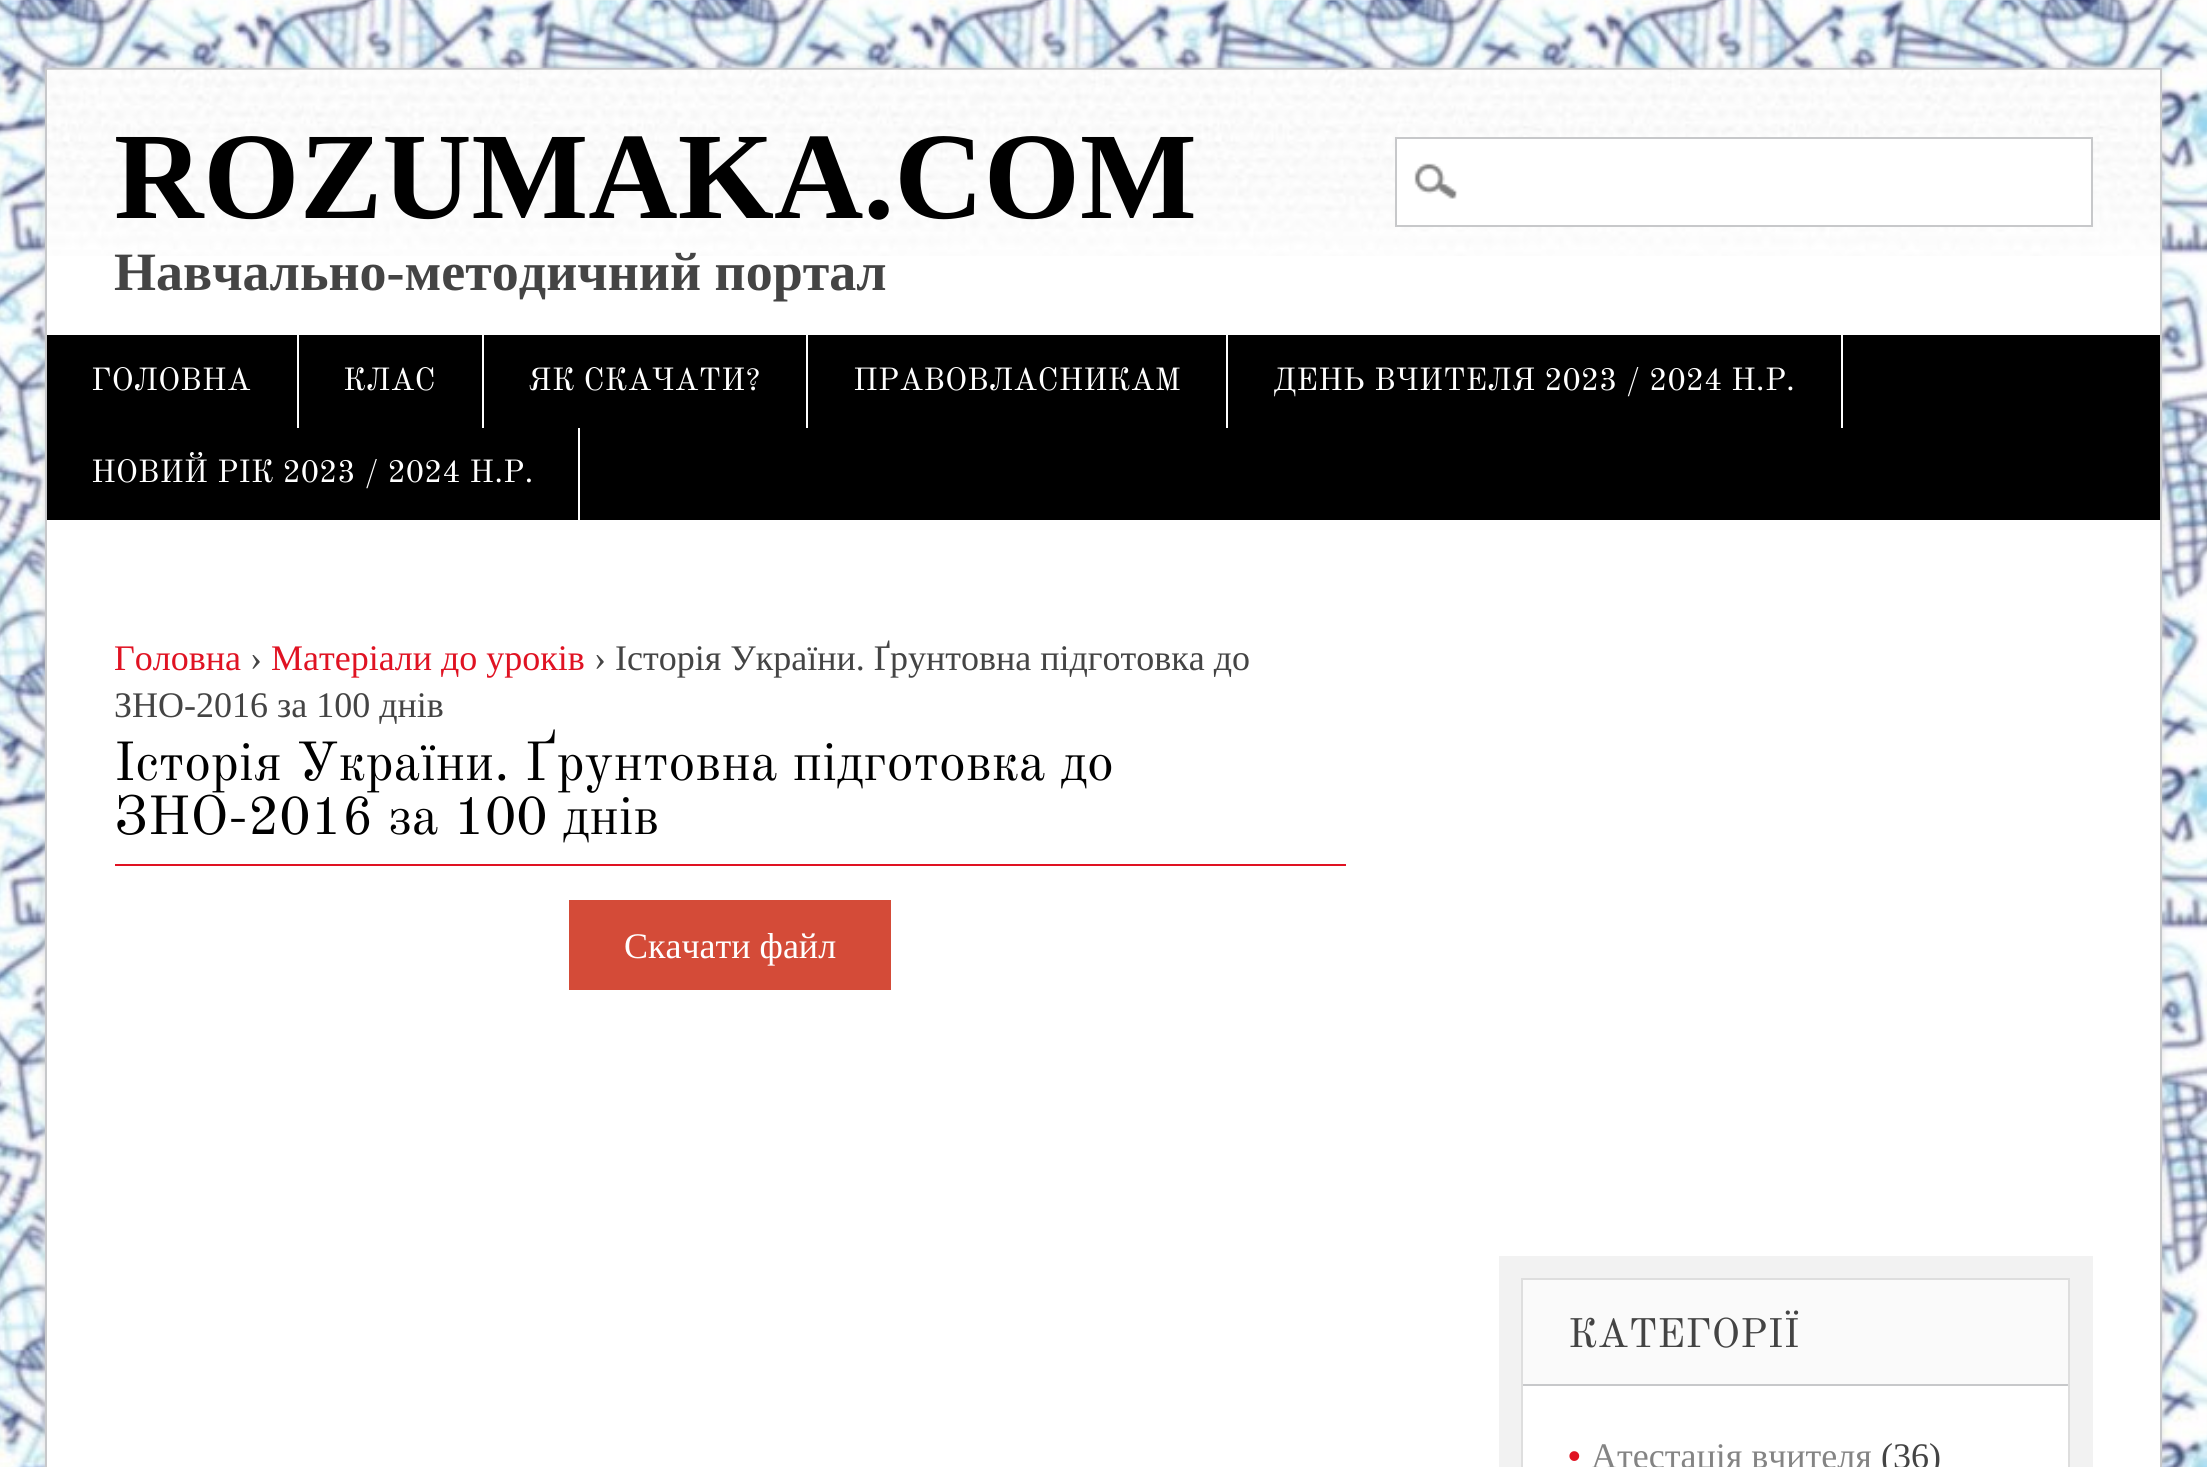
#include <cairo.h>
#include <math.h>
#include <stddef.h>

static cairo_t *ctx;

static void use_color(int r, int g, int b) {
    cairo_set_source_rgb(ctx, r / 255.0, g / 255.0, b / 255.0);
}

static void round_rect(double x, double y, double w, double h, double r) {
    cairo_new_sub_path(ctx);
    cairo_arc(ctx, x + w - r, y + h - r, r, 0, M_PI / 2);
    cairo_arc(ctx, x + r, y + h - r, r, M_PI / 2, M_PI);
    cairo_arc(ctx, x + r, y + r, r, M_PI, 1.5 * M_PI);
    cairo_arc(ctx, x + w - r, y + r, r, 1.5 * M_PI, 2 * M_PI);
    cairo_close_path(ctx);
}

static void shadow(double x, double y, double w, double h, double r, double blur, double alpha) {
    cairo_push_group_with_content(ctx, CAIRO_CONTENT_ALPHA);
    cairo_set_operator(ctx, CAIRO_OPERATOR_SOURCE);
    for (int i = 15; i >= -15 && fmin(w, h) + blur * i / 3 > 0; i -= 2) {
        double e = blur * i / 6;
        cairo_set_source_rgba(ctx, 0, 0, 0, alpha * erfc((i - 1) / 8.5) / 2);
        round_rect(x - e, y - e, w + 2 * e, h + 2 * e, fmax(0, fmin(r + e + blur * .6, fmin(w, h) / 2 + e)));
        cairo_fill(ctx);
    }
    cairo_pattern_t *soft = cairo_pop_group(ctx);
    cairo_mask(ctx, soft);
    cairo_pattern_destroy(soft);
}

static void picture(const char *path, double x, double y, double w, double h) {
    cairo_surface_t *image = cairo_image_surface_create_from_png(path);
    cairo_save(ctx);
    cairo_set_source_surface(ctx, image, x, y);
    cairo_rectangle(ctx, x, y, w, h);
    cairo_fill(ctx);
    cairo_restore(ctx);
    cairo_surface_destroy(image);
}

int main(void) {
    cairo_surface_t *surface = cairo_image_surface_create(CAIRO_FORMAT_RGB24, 2207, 1467);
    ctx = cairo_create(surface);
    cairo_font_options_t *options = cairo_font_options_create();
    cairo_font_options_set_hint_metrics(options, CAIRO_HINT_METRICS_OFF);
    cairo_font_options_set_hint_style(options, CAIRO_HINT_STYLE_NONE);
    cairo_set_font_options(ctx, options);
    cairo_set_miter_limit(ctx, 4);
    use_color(255, 255, 255);
    cairo_paint(ctx);
    picture("img1.png", 0, 0, 2207, 1467);
    use_color(221, 221, 221);
    shadow(45, 68, 2117, 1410, 0, 3.5, 1);
    use_color(255, 255, 255);
    cairo_rectangle(ctx, 46, 69, 2115, 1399);
    cairo_fill_preserve(ctx);
    use_color(199, 200, 202);
    cairo_stroke(ctx);
    picture("img2.png", 47, 69, 2113, 187);
    cairo_select_font_face(ctx, "Liberation Serif", CAIRO_FONT_SLANT_NORMAL, CAIRO_FONT_WEIGHT_BOLD);
    cairo_set_font_size(ctx, 123.75);
    use_color(0, 0, 0);
    cairo_move_to(ctx, 114, 218);
    cairo_show_text(ctx, "ROZUMAKA.COM");
    cairo_set_font_size(ctx, 54);
    use_color(68, 68, 68);
    cairo_move_to(ctx, 114, 290);
    cairo_show_text(ctx, "Навчально-методичний портал");
    use_color(255, 255, 255);
    cairo_rectangle(ctx, 1397, 139, 694, 86);
    cairo_fill(ctx);
    picture("img3.png", 1414, 163, 44, 36);
    cairo_rectangle(ctx, 1396, 138, 696, 88);
    use_color(199, 200, 202);
    cairo_stroke(ctx);
    use_color(0, 0, 0);
    cairo_rectangle(ctx, 47, 335, 2113, 185);
    cairo_fill(ctx);
    use_color(255, 255, 255);
    cairo_rectangle(ctx, 297, 335, 2, 93);
    cairo_fill(ctx);
    cairo_select_font_face(ctx, "Old Standard TT", CAIRO_FONT_SLANT_NORMAL, CAIRO_FONT_WEIGHT_NORMAL);
    cairo_set_font_size(ctx, 31.5);
    cairo_move_to(ctx, 91, 390);
    cairo_show_text(ctx, "ГОЛОВНА");
    cairo_rectangle(ctx, 482, 335, 2, 93);
    cairo_fill(ctx);
    cairo_move_to(ctx, 343, 390);
    cairo_show_text(ctx, "КЛАС");
    cairo_rectangle(ctx, 806, 335, 2, 93);
    cairo_fill(ctx);
    cairo_move_to(ctx, 528, 390);
    cairo_show_text(ctx, "ЯК СКАЧАТИ?");
    cairo_rectangle(ctx, 1226, 335, 2, 93);
    cairo_fill(ctx);
    cairo_move_to(ctx, 853, 390);
    cairo_show_text(ctx, "ПРАВОВЛАСНИКАМ");
    cairo_rectangle(ctx, 1841, 335, 2, 93);
    cairo_fill(ctx);
    cairo_move_to(ctx, 1273, 390);
    cairo_show_text(ctx, "ДЕНЬ ВЧИТЕЛЯ 2023 / 2024 Н.Р.");
    cairo_rectangle(ctx, 578, 428, 2, 92);
    cairo_fill(ctx);
    cairo_move_to(ctx, 91, 482);
    cairo_show_text(ctx, "НОВИЙ РІК 2023 / 2024 Н.Р.");
    cairo_select_font_face(ctx, "Liberation Serif", CAIRO_FONT_SLANT_NORMAL, CAIRO_FONT_WEIGHT_NORMAL);
    cairo_set_font_size(ctx, 36);
    use_color(224, 18, 34);
    cairo_move_to(ctx, 114, 670);
    cairo_show_text(ctx, "Головна");
    use_color(68, 68, 68);
    cairo_move_to(ctx, 250, 670);
    cairo_show_text(ctx, "›");
    use_color(224, 18, 34);
    cairo_move_to(ctx, 271, 670);
    cairo_show_text(ctx, "Матеріали до уроків");
    use_color(68, 68, 68);
    cairo_move_to(ctx, 594, 670);
    cairo_show_text(ctx, "› Історія України. Ґрунтовна підготовка до");
    cairo_move_to(ctx, 114, 717);
    cairo_show_text(ctx, "ЗНО-2016 за 100 днів");
    use_color(224, 18, 34);
    cairo_rectangle(ctx, 115, 864, 1231, 2);
    cairo_fill(ctx);
    cairo_select_font_face(ctx, "Old Standard TT", CAIRO_FONT_SLANT_NORMAL, CAIRO_FONT_WEIGHT_NORMAL);
    cairo_set_font_size(ctx, 54);
    use_color(0, 0, 0);
    cairo_move_to(ctx, 114, 780);
    cairo_show_text(ctx, "Історія України. Ґрунтовна підготовка до");
    cairo_move_to(ctx, 114, 834);
    cairo_show_text(ctx, "ЗНО-2016 за 100 днів");
    use_color(212, 75, 56);
    cairo_rectangle(ctx, 569, 900, 322, 90);
    cairo_fill(ctx);
    cairo_select_font_face(ctx, "Liberation Serif", CAIRO_FONT_SLANT_NORMAL, CAIRO_FONT_WEIGHT_NORMAL);
    cairo_set_font_size(ctx, 36);
    use_color(255, 255, 255);
    cairo_move_to(ctx, 624, 958);
    cairo_show_text(ctx, "Скачати файл");
    use_color(242, 242, 242);
    cairo_rectangle(ctx, 1499, 1256, 594, 211);
    cairo_fill(ctx);
    use_color(255, 255, 255);
    cairo_rectangle(ctx, 1523, 1386, 545, 81);
    cairo_fill(ctx);
    cairo_rectangle(ctx, 1522, 1279, 547, 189);
    use_color(222, 222, 222);
    cairo_stroke(ctx);
    use_color(250, 250, 250);
    cairo_rectangle(ctx, 1523, 1280, 545, 104);
    cairo_fill(ctx);
    use_color(199, 200, 202);
    cairo_rectangle(ctx, 1523, 1384, 545, 2);
    cairo_fill(ctx);
    cairo_select_font_face(ctx, "Old Standard TT", CAIRO_FONT_SLANT_NORMAL, CAIRO_FONT_WEIGHT_NORMAL);
    cairo_set_font_size(ctx, 40.5);
    use_color(68, 68, 68);
    cairo_move_to(ctx, 1568, 1347);
    cairo_show_text(ctx, "КАТЕГОРІЇ");
    cairo_select_font_face(ctx, "Liberation Sans", CAIRO_FONT_SLANT_NORMAL, CAIRO_FONT_WEIGHT_NORMAL);
    cairo_set_font_size(ctx, 36);
    use_color(224, 18, 34);
    cairo_move_to(ctx, 1568, 1468);
    cairo_show_text(ctx, "•");
    cairo_select_font_face(ctx, "Liberation Serif", CAIRO_FONT_SLANT_NORMAL, CAIRO_FONT_WEIGHT_NORMAL);
    use_color(132, 132, 132);
    cairo_move_to(ctx, 1591, 1468);
    cairo_show_text(ctx, "Атестація вчителя");
    use_color(68, 68, 68);
    cairo_move_to(ctx, 1881, 1468);
    cairo_show_text(ctx, "(36)");
    cairo_surface_write_to_png(surface, "result.png");
    cairo_font_options_destroy(options);
    cairo_destroy(ctx);
    cairo_surface_destroy(surface);
    return 0;
}
